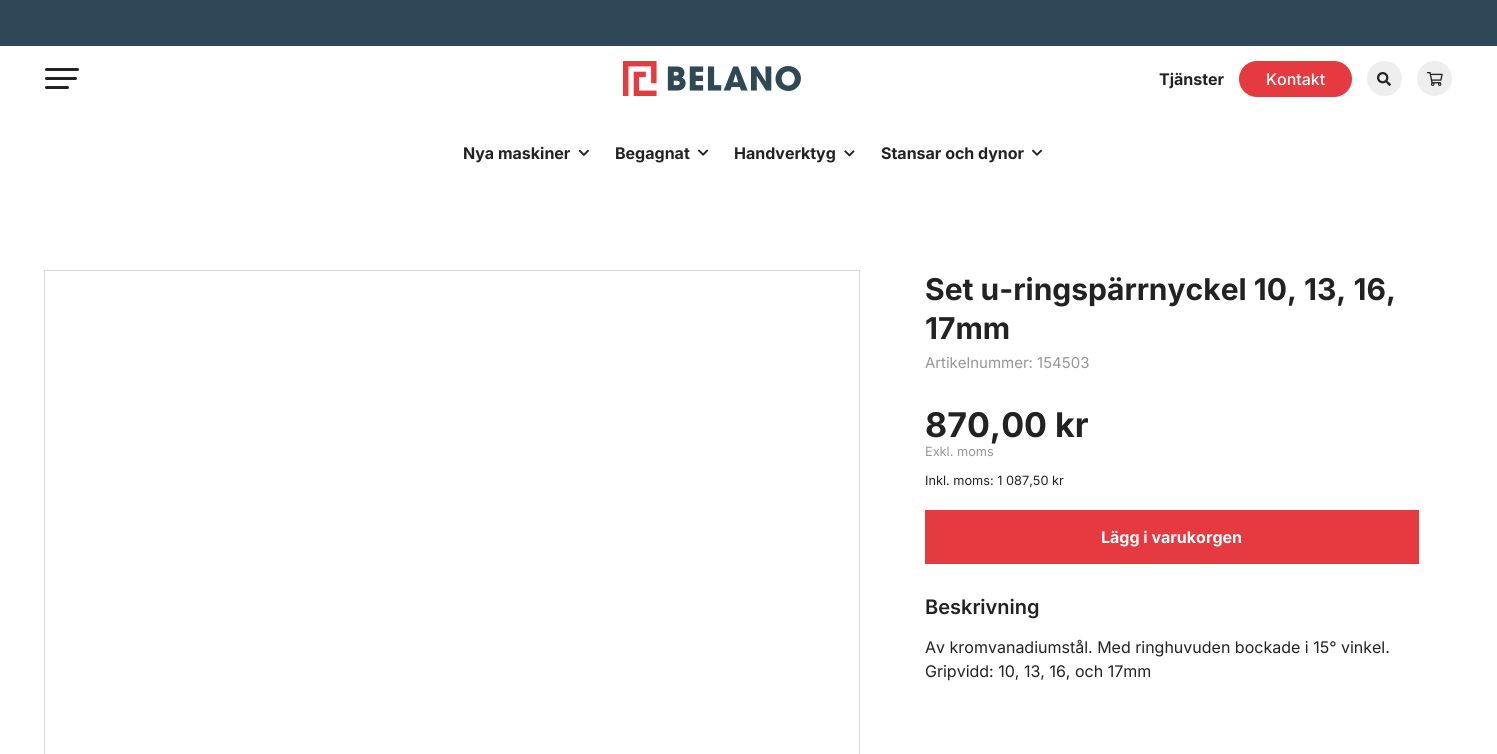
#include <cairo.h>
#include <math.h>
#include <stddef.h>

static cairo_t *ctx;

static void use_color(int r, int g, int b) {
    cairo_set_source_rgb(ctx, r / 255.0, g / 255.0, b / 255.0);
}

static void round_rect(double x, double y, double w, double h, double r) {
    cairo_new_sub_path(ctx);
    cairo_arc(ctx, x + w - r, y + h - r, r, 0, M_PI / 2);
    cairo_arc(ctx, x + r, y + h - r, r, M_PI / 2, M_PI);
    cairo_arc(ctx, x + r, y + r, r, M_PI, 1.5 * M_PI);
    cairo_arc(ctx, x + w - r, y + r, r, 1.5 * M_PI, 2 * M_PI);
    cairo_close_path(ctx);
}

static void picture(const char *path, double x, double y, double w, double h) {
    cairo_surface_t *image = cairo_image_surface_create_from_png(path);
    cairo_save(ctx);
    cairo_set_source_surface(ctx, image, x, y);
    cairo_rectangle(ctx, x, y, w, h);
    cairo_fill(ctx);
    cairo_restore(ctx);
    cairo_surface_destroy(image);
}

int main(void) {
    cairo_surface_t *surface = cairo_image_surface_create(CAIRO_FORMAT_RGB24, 1497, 754);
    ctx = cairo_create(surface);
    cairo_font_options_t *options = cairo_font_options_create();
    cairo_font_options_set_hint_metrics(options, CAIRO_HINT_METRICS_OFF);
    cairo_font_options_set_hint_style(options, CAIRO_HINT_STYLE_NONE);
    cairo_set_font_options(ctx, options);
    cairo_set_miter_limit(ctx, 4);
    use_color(255, 255, 255);
    cairo_paint(ctx);
    use_color(47, 72, 88);
    cairo_rectangle(ctx, 0, 0, 1497, 46);
    cairo_fill(ctx);
    use_color(34, 34, 34);
    round_rect(45, 68, 34, 3, 1.5);
    cairo_fill(ctx);
    round_rect(45, 77, 32, 3, 1.5);
    cairo_fill(ctx);
    round_rect(45, 86, 24, 3, 1.5);
    cairo_fill(ctx);
    picture("img1.png", 623, 61, 178, 35);
    cairo_select_font_face(ctx, "Inter", CAIRO_FONT_SLANT_NORMAL, CAIRO_FONT_WEIGHT_BOLD);
    cairo_set_font_size(ctx, 16);
    cairo_move_to(ctx, 1159, 85);
    cairo_show_text(ctx, "Tjänster");
    use_color(229, 58, 64);
    round_rect(1240, 62, 111, 34, 17);
    cairo_fill_preserve(ctx);
    cairo_stroke(ctx);
    cairo_select_font_face(ctx, "Inter Medium", CAIRO_FONT_SLANT_NORMAL, CAIRO_FONT_WEIGHT_NORMAL);
    use_color(255, 255, 255);
    cairo_move_to(ctx, 1266, 85);
    cairo_show_text(ctx, "Kontakt");
    use_color(238, 238, 238);
    cairo_new_path(ctx);
    cairo_arc(ctx, 1384.5, 78.5, 17.5, 0, 2 * M_PI);
    cairo_fill(ctx);
    picture("img2.png", 1377, 72, 14, 14);
    cairo_arc(ctx, 1434.5, 78.5, 17.5, 0, 2 * M_PI);
    cairo_fill(ctx);
    picture("img3.png", 1427, 72, 16, 14);
    cairo_select_font_face(ctx, "Inter", CAIRO_FONT_SLANT_NORMAL, CAIRO_FONT_WEIGHT_BOLD);
    use_color(34, 34, 34);
    cairo_move_to(ctx, 463, 159);
    cairo_show_text(ctx, "Nya maskiner");
    picture("img4.png", 578, 149, 11, 7);
    cairo_move_to(ctx, 615, 159);
    cairo_show_text(ctx, "Begagnat");
    picture("img5.png", 698, 149, 11, 7);
    cairo_move_to(ctx, 734, 159);
    cairo_show_text(ctx, "Handverktyg");
    picture("img6.png", 844, 150, 11, 7);
    cairo_move_to(ctx, 881, 159);
    cairo_show_text(ctx, "Stansar och dynor");
    picture("img7.png", 1032, 149, 11, 7);
    cairo_rectangle(ctx, 44.5, 270.5, 815, 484);
    use_color(217, 217, 217);
    cairo_set_line_width(ctx, 1);
    cairo_stroke(ctx);
    cairo_set_font_size(ctx, 30);
    use_color(34, 34, 34);
    cairo_move_to(ctx, 925, 300);
    cairo_show_text(ctx, "Set u-ringspärrnyckel 10, 13, 16,");
    cairo_move_to(ctx, 925, 339);
    cairo_show_text(ctx, "17mm");
    cairo_select_font_face(ctx, "Inter", CAIRO_FONT_SLANT_NORMAL, CAIRO_FONT_WEIGHT_NORMAL);
    cairo_set_font_size(ctx, 15);
    use_color(150, 150, 150);
    cairo_move_to(ctx, 925, 368);
    cairo_show_text(ctx, "Artikelnummer: 154503");
    cairo_select_font_face(ctx, "Inter", CAIRO_FONT_SLANT_NORMAL, CAIRO_FONT_WEIGHT_BOLD);
    cairo_set_font_size(ctx, 34);
    use_color(34, 34, 34);
    cairo_move_to(ctx, 925, 437);
    cairo_show_text(ctx, "870,00 kr");
    cairo_select_font_face(ctx, "Inter", CAIRO_FONT_SLANT_NORMAL, CAIRO_FONT_WEIGHT_NORMAL);
    cairo_set_font_size(ctx, 12.75);
    use_color(150, 150, 150);
    cairo_move_to(ctx, 925, 456);
    cairo_show_text(ctx, "Exkl. moms");
    use_color(34, 34, 34);
    cairo_move_to(ctx, 925, 485);
    cairo_show_text(ctx, "Inkl. moms: 1 087,50 kr");
    use_color(229, 58, 64);
    cairo_rectangle(ctx, 925, 510, 494, 54);
    cairo_fill(ctx);
    cairo_select_font_face(ctx, "Inter", CAIRO_FONT_SLANT_NORMAL, CAIRO_FONT_WEIGHT_BOLD);
    cairo_set_font_size(ctx, 16);
    use_color(255, 255, 255);
    cairo_move_to(ctx, 1101, 543);
    cairo_show_text(ctx, "Lägg i varukorgen");
    cairo_select_font_face(ctx, "Inter SemiBold", CAIRO_FONT_SLANT_NORMAL, CAIRO_FONT_WEIGHT_NORMAL);
    cairo_set_font_size(ctx, 20);
    use_color(34, 34, 34);
    cairo_move_to(ctx, 925, 614);
    cairo_show_text(ctx, "Beskrivning");
    cairo_select_font_face(ctx, "Inter", CAIRO_FONT_SLANT_NORMAL, CAIRO_FONT_WEIGHT_NORMAL);
    cairo_set_font_size(ctx, 16);
    cairo_move_to(ctx, 925, 653);
    cairo_show_text(ctx, "Av kromvanadiumstål. Med ringhuvuden bockade i 15° vinkel.");
    cairo_move_to(ctx, 925, 677);
    cairo_show_text(ctx, "Gripvidd: 10, 13, 16, och 17mm");
    cairo_surface_write_to_png(surface, "result.png");
    cairo_font_options_destroy(options);
    cairo_destroy(ctx);
    cairo_surface_destroy(surface);
    return 0;
}
